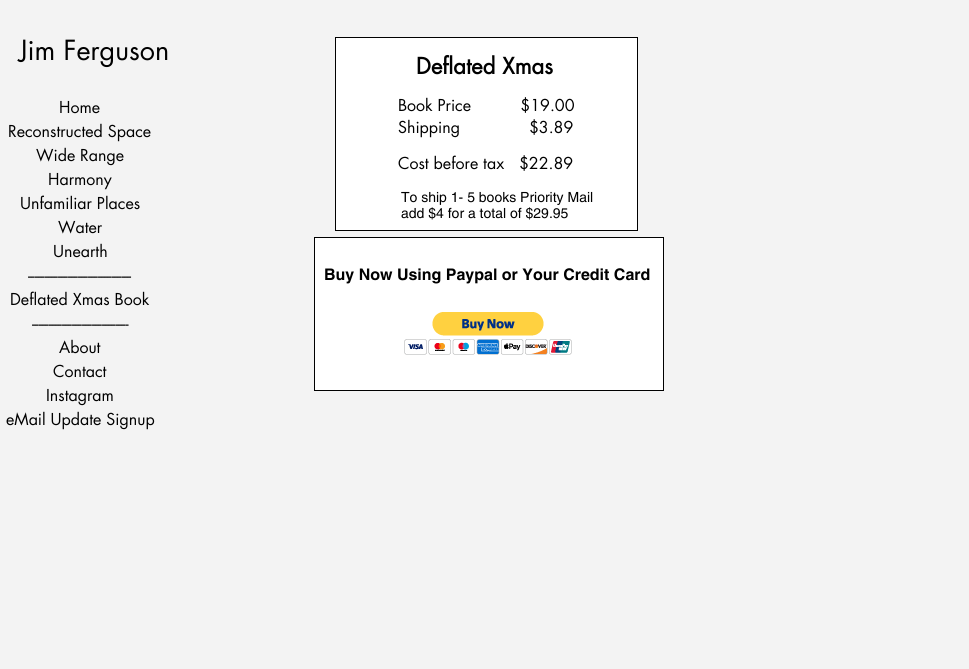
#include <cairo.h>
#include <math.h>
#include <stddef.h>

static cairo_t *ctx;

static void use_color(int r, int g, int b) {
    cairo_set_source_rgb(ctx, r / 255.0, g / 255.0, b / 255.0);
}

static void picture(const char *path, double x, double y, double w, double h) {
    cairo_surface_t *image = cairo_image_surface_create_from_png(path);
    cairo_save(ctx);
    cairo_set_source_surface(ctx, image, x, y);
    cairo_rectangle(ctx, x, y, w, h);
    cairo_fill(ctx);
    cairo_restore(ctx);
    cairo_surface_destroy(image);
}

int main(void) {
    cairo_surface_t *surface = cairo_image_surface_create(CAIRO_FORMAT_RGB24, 969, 669);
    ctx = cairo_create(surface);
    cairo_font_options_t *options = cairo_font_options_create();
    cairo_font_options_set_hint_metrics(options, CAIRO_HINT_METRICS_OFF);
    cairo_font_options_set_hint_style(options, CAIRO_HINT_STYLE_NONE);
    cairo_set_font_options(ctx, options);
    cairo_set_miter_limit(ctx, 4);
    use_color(243, 243, 243);
    cairo_paint(ctx);
    cairo_select_font_face(ctx, "futura", CAIRO_FONT_SLANT_NORMAL, CAIRO_FONT_WEIGHT_NORMAL);
    cairo_set_font_size(ctx, 27);
    use_color(0, 0, 0);
    cairo_move_to(ctx, 19, 60);
    cairo_show_text(ctx, "Jim Ferguson");
    cairo_set_font_size(ctx, 16);
    cairo_move_to(ctx, 59, 113);
    cairo_show_text(ctx, "Home");
    cairo_move_to(ctx, 8, 137);
    cairo_show_text(ctx, "Reconstructed Space");
    cairo_move_to(ctx, 36, 161);
    cairo_show_text(ctx, "Wide Range");
    cairo_move_to(ctx, 48, 185);
    cairo_show_text(ctx, "Harmony");
    cairo_move_to(ctx, 20, 209);
    cairo_show_text(ctx, "Unfamiliar Places");
    cairo_move_to(ctx, 58, 233);
    cairo_show_text(ctx, "Water");
    cairo_move_to(ctx, 53, 257);
    cairo_show_text(ctx, "Unearth");
    cairo_move_to(ctx, 28, 281);
    cairo_show_text(ctx, "-------------------------------");
    cairo_move_to(ctx, 10, 305);
    cairo_show_text(ctx, "Deflated Xmas Book");
    cairo_move_to(ctx, 32, 329);
    cairo_show_text(ctx, "-----------------------------");
    cairo_move_to(ctx, 59, 353);
    cairo_show_text(ctx, "About");
    cairo_move_to(ctx, 53, 377);
    cairo_show_text(ctx, "Contact");
    cairo_move_to(ctx, 46, 401);
    cairo_show_text(ctx, "Instagram");
    cairo_move_to(ctx, 6, 425);
    cairo_show_text(ctx, "eMail Update Signup");
    use_color(255, 255, 255);
    cairo_rectangle(ctx, 335.5, 37.5, 302, 193);
    cairo_fill_preserve(ctx);
    use_color(0, 0, 0);
    cairo_set_line_width(ctx, 1);
    cairo_stroke(ctx);
    cairo_select_font_face(ctx, "futura", CAIRO_FONT_SLANT_NORMAL, CAIRO_FONT_WEIGHT_BOLD);
    cairo_set_font_size(ctx, 22);
    cairo_move_to(ctx, 416, 74);
    cairo_show_text(ctx, "Deflated Xmas");
    cairo_select_font_face(ctx, "futura", CAIRO_FONT_SLANT_NORMAL, CAIRO_FONT_WEIGHT_NORMAL);
    cairo_set_font_size(ctx, 16);
    cairo_move_to(ctx, 398, 111);
    cairo_show_text(ctx, "Book Price          $19.00");
    cairo_move_to(ctx, 398, 133);
    cairo_show_text(ctx, "Shipping              $3.89");
    cairo_move_to(ctx, 398, 169);
    cairo_show_text(ctx, "Cost before tax   $22.89");
    cairo_select_font_face(ctx, "helvetica", CAIRO_FONT_SLANT_NORMAL, CAIRO_FONT_WEIGHT_NORMAL);
    cairo_set_font_size(ctx, 14);
    cairo_move_to(ctx, 401, 202);
    cairo_show_text(ctx, "To ship 1- 5 books Priority Mail");
    cairo_move_to(ctx, 401, 218);
    cairo_show_text(ctx, "add $4 for a total of $29.95");
    use_color(255, 255, 255);
    cairo_rectangle(ctx, 314.5, 237.5, 349, 153);
    cairo_fill_preserve(ctx);
    use_color(0, 0, 0);
    cairo_stroke(ctx);
    cairo_select_font_face(ctx, "helvetica", CAIRO_FONT_SLANT_NORMAL, CAIRO_FONT_WEIGHT_BOLD);
    cairo_set_font_size(ctx, 16);
    cairo_move_to(ctx, 324, 280);
    cairo_show_text(ctx, "Buy Now Using Paypal or Your Credit Card");
    picture("img1.png", 404, 312, 168, 43);
    cairo_surface_write_to_png(surface, "result.png");
    cairo_font_options_destroy(options);
    cairo_destroy(ctx);
    cairo_surface_destroy(surface);
    return 0;
}
